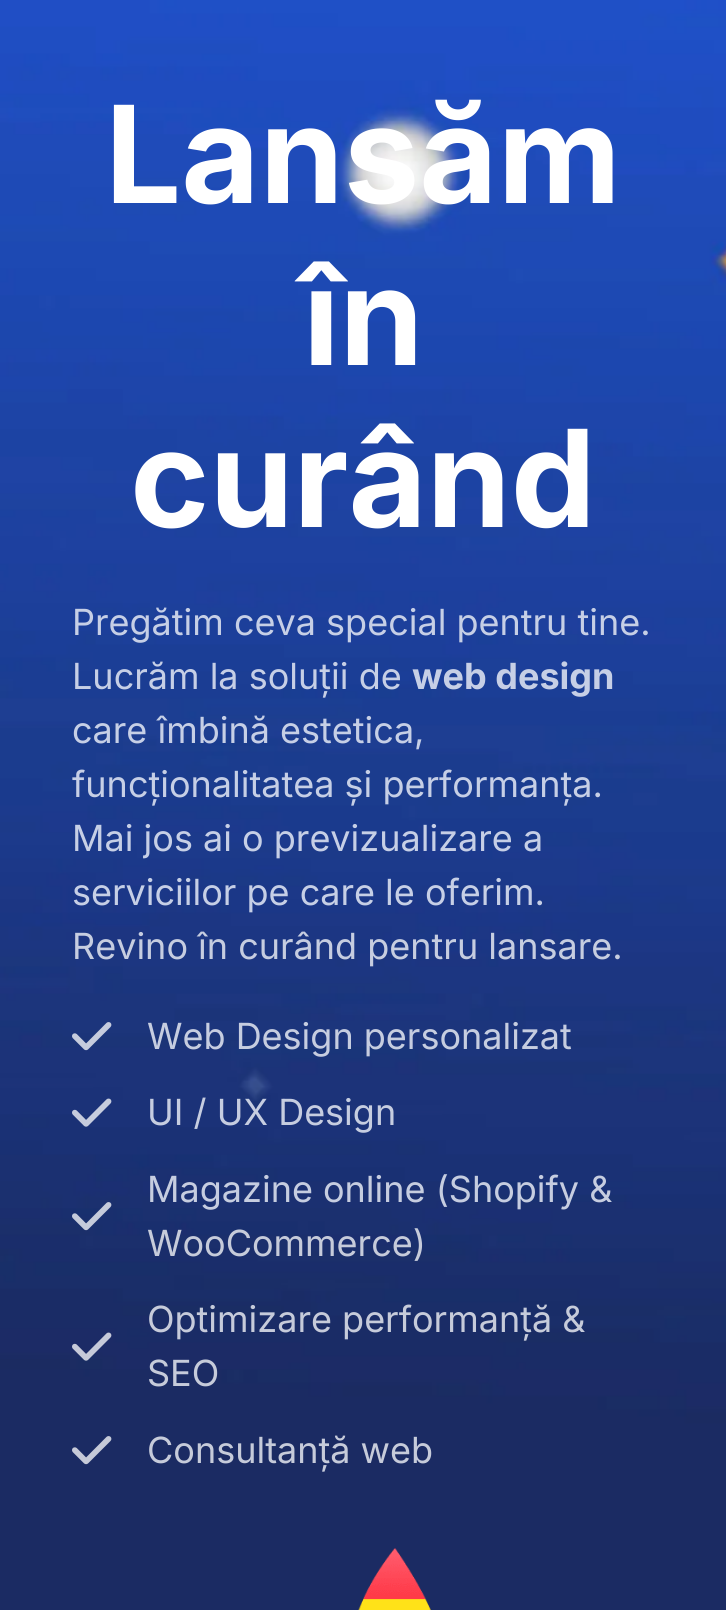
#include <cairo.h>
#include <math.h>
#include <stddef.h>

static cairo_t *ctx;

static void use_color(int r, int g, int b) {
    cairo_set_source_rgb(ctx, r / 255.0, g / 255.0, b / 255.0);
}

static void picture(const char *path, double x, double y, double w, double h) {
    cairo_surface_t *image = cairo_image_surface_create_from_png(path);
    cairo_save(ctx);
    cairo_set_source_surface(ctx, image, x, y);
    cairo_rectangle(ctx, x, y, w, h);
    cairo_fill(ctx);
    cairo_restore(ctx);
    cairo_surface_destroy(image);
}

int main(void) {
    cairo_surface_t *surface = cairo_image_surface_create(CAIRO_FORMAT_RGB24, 726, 1610);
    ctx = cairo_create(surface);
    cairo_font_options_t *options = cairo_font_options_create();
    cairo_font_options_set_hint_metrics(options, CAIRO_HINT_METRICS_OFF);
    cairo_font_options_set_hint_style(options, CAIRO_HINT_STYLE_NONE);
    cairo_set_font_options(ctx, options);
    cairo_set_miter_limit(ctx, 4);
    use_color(255, 255, 255);
    cairo_paint(ctx);
    picture("img1.png", 0, 0, 726, 1610);
    cairo_select_font_face(ctx, "Inter", CAIRO_FONT_SLANT_NORMAL, CAIRO_FONT_WEIGHT_BOLD);
    cairo_set_font_size(ctx, 135);
    use_color(255, 255, 255);
    cairo_move_to(ctx, 105, 203);
    cairo_show_text(ctx, "Lansăm");
    cairo_move_to(ctx, 303, 365);
    cairo_show_text(ctx, "în");
    cairo_move_to(ctx, 130, 527);
    cairo_show_text(ctx, "curând");
    cairo_select_font_face(ctx, "Inter", CAIRO_FONT_SLANT_NORMAL, CAIRO_FONT_WEIGHT_NORMAL);
    cairo_set_font_size(ctx, 36);
    use_color(198, 207, 230);
    cairo_move_to(ctx, 72, 635);
    cairo_show_text(ctx, "Pregătim ceva special pentru tine.");
    cairo_move_to(ctx, 72, 689);
    cairo_show_text(ctx, "Lucrăm la soluții de");
    cairo_select_font_face(ctx, "Inter", CAIRO_FONT_SLANT_NORMAL, CAIRO_FONT_WEIGHT_BOLD);
    cairo_move_to(ctx, 412, 689);
    cairo_show_text(ctx, "web design");
    cairo_select_font_face(ctx, "Inter", CAIRO_FONT_SLANT_NORMAL, CAIRO_FONT_WEIGHT_NORMAL);
    cairo_move_to(ctx, 72, 743);
    cairo_show_text(ctx, "care îmbină estetica,");
    cairo_move_to(ctx, 72, 797);
    cairo_show_text(ctx, "funcționalitatea și performanța.");
    cairo_move_to(ctx, 72, 851);
    cairo_show_text(ctx, "Mai jos ai o previzualizare a");
    cairo_move_to(ctx, 72, 905);
    cairo_show_text(ctx, "serviciilor pe care le oferim.");
    use_color(198, 205, 224);
    cairo_move_to(ctx, 72, 959);
    cairo_show_text(ctx, "Revino în curând pentru lansare.");
    picture("img2.png", 72, 1022, 40, 29);
    cairo_move_to(ctx, 147, 1049);
    cairo_show_text(ctx, "Web Design personalizat");
    picture("img3.png", 72, 1098, 40, 29);
    cairo_move_to(ctx, 147, 1125);
    cairo_show_text(ctx, "UI / UX Design");
    picture("img4.png", 72, 1202, 40, 29);
    cairo_move_to(ctx, 147, 1202);
    cairo_show_text(ctx, "Magazine online (Shopify &");
    use_color(198, 203, 218);
    cairo_move_to(ctx, 147, 1256);
    cairo_show_text(ctx, "WooCommerce)");
    picture("img5.png", 72, 1332, 40, 29);
    cairo_move_to(ctx, 147, 1332);
    cairo_show_text(ctx, "Optimizare performanță &");
    cairo_move_to(ctx, 147, 1386);
    cairo_show_text(ctx, "SEO");
    picture("img6.png", 72, 1436, 40, 29);
    cairo_move_to(ctx, 147, 1463);
    cairo_show_text(ctx, "Consultanță web");
    picture("img7.png", 358, 1548, 73, 62);
    cairo_surface_write_to_png(surface, "result.png");
    cairo_font_options_destroy(options);
    cairo_destroy(ctx);
    cairo_surface_destroy(surface);
    return 0;
}
